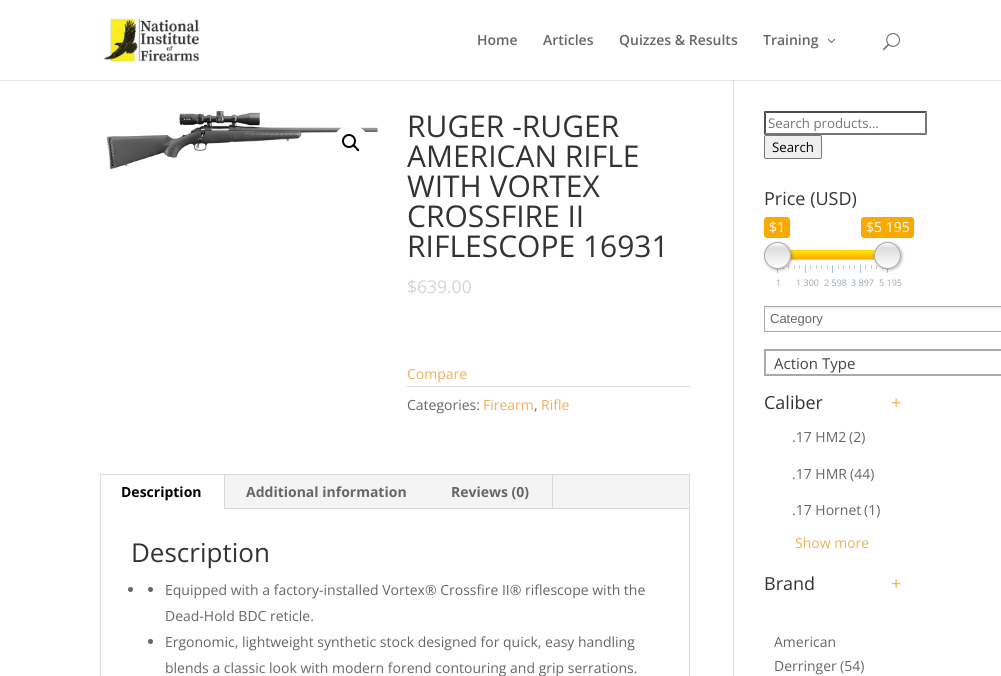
#include <cairo.h>
#include <math.h>
#include <stddef.h>

static cairo_t *ctx;

static void use_color(int r, int g, int b) {
    cairo_set_source_rgb(ctx, r / 255.0, g / 255.0, b / 255.0);
}

static void round_rect(double x, double y, double w, double h, double r) {
    cairo_new_sub_path(ctx);
    cairo_arc(ctx, x + w - r, y + h - r, r, 0, M_PI / 2);
    cairo_arc(ctx, x + r, y + h - r, r, M_PI / 2, M_PI);
    cairo_arc(ctx, x + r, y + r, r, M_PI, 1.5 * M_PI);
    cairo_arc(ctx, x + w - r, y + r, r, 1.5 * M_PI, 2 * M_PI);
    cairo_close_path(ctx);
}

static void shadow(double x, double y, double w, double h, double r, double blur, double alpha) {
    cairo_push_group_with_content(ctx, CAIRO_CONTENT_ALPHA);
    cairo_set_operator(ctx, CAIRO_OPERATOR_SOURCE);
    for (int i = 15; i >= -15 && fmin(w, h) + blur * i / 3 > 0; i -= 2) {
        double e = blur * i / 6;
        cairo_set_source_rgba(ctx, 0, 0, 0, alpha * erfc((i - 1) / 8.5) / 2);
        round_rect(x - e, y - e, w + 2 * e, h + 2 * e, fmax(0, fmin(r + e + blur * .6, fmin(w, h) / 2 + e)));
        cairo_fill(ctx);
    }
    cairo_pattern_t *soft = cairo_pop_group(ctx);
    cairo_mask(ctx, soft);
    cairo_pattern_destroy(soft);
}

static void picture(const char *path, double x, double y, double w, double h) {
    cairo_surface_t *image = cairo_image_surface_create_from_png(path);
    cairo_save(ctx);
    cairo_set_source_surface(ctx, image, x, y);
    cairo_rectangle(ctx, x, y, w, h);
    cairo_fill(ctx);
    cairo_restore(ctx);
    cairo_surface_destroy(image);
}

int main(void) {
    cairo_surface_t *surface = cairo_image_surface_create(CAIRO_FORMAT_RGB24, 1001, 676);
    ctx = cairo_create(surface);
    cairo_font_options_t *options = cairo_font_options_create();
    cairo_font_options_set_hint_metrics(options, CAIRO_HINT_METRICS_OFF);
    cairo_font_options_set_hint_style(options, CAIRO_HINT_STYLE_NONE);
    cairo_set_font_options(ctx, options);
    cairo_set_miter_limit(ctx, 4);
    cairo_pattern_t *gradient;
    use_color(255, 255, 255);
    cairo_paint(ctx);
    use_color(230, 230, 230);
    cairo_rectangle(ctx, 0, 80, 1001, 1);
    cairo_fill(ctx);
    picture("img1.png", 104, 18, 95, 44);
    cairo_select_font_face(ctx, "Open Sans SemiBold", CAIRO_FONT_SLANT_NORMAL, CAIRO_FONT_WEIGHT_NORMAL);
    cairo_set_font_size(ctx, 14);
    use_color(102, 102, 102);
    cairo_move_to(ctx, 477, 45);
    cairo_show_text(ctx, "Home");
    cairo_move_to(ctx, 543, 45);
    cairo_show_text(ctx, "Articles");
    cairo_move_to(ctx, 619, 45);
    cairo_show_text(ctx, "Quizzes & Results");
    cairo_move_to(ctx, 763, 45);
    cairo_show_text(ctx, "Training");
    picture("img2.png", 827, 38, 9, 5);
    picture("img3.png", 883, 33, 17, 18);
    use_color(226, 226, 226);
    cairo_rectangle(ctx, 733, 81, 1, 595);
    cairo_fill(ctx);
    use_color(203, 203, 203);
    cairo_rectangle(ctx, 733, 80, 1, 1);
    cairo_fill(ctx);
    picture("img4.png", 107, 111, 271, 58);
    use_color(255, 255, 255);
    cairo_arc(ctx, 351, 143, 18, 0, 2 * M_PI);
    cairo_fill(ctx);
    cairo_arc(ctx, 349, 141, 6, 0, 2 * M_PI);
    use_color(0, 0, 0);
    cairo_stroke(ctx);
    cairo_new_path(ctx);
    cairo_move_to(ctx, 353.5, 145);
    cairo_curve_to(ctx, 354.5, 144, 356, 146.5, 357, 147.5);
    cairo_curve_to(ctx, 357.5, 148, 360, 149.5, 359, 151);
    cairo_curve_to(ctx, 357.5, 152, 356, 149.5, 355.5, 148.5);
    cairo_curve_to(ctx, 355, 148, 352, 146.5, 353.5, 145);
    cairo_close_path(ctx);
    cairo_fill(ctx);
    cairo_select_font_face(ctx, "Open Sans", CAIRO_FONT_SLANT_NORMAL, CAIRO_FONT_WEIGHT_NORMAL);
    cairo_set_font_size(ctx, 30);
    use_color(51, 51, 51);
    cairo_move_to(ctx, 407, 137);
    cairo_show_text(ctx, "RUGER -RUGER");
    cairo_move_to(ctx, 407, 167);
    cairo_show_text(ctx, "AMERICAN RIFLE");
    cairo_move_to(ctx, 407, 197);
    cairo_show_text(ctx, "WITH VORTEX");
    cairo_move_to(ctx, 407, 227);
    cairo_show_text(ctx, "CROSSFIRE II");
    cairo_move_to(ctx, 407, 257);
    cairo_show_text(ctx, "RIFLESCOPE 16931");
    cairo_set_font_size(ctx, 17.5);
    use_color(211, 211, 211);
    cairo_move_to(ctx, 407, 293);
    cairo_show_text(ctx, "$639.00");
    cairo_set_font_size(ctx, 14);
    use_color(237, 176, 89);
    cairo_move_to(ctx, 407, 379);
    cairo_show_text(ctx, "Compare");
    use_color(218, 218, 218);
    cairo_rectangle(ctx, 407, 386, 283, 1);
    cairo_fill(ctx);
    use_color(102, 102, 102);
    cairo_move_to(ctx, 407, 410);
    cairo_show_text(ctx, "Categories:");
    use_color(237, 176, 89);
    cairo_move_to(ctx, 483, 410);
    cairo_show_text(ctx, "Firearm");
    use_color(102, 102, 102);
    cairo_move_to(ctx, 534, 410);
    cairo_show_text(ctx, ",");
    use_color(237, 176, 89);
    cairo_move_to(ctx, 541, 410);
    cairo_show_text(ctx, "Rifle");
    cairo_rectangle(ctx, 100.5, 474.5, 589, 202);
    use_color(217, 217, 217);
    cairo_set_line_width(ctx, 1);
    cairo_stroke(ctx);
    use_color(244, 244, 244);
    cairo_rectangle(ctx, 225, 475, 464, 33);
    cairo_fill(ctx);
    use_color(217, 217, 217);
    cairo_rectangle(ctx, 224, 475, 1, 34);
    cairo_fill(ctx);
    cairo_select_font_face(ctx, "Open Sans", CAIRO_FONT_SLANT_NORMAL, CAIRO_FONT_WEIGHT_BOLD);
    use_color(0, 0, 0);
    cairo_move_to(ctx, 121, 497);
    cairo_show_text(ctx, "Description");
    use_color(102, 102, 102);
    cairo_move_to(ctx, 246, 497);
    cairo_show_text(ctx, "Additional information");
    use_color(217, 217, 217);
    cairo_rectangle(ctx, 552, 475, 1, 34);
    cairo_fill(ctx);
    use_color(102, 102, 102);
    cairo_move_to(ctx, 451, 497);
    cairo_show_text(ctx, "Reviews (0)");
    use_color(217, 217, 217);
    cairo_rectangle(ctx, 225, 508, 464, 1);
    cairo_fill(ctx);
    cairo_select_font_face(ctx, "Open Sans", CAIRO_FONT_SLANT_NORMAL, CAIRO_FONT_WEIGHT_NORMAL);
    cairo_set_font_size(ctx, 26);
    use_color(51, 51, 51);
    cairo_move_to(ctx, 131, 562);
    cairo_show_text(ctx, "Description");
    use_color(102, 102, 102);
    cairo_new_path(ctx);
    cairo_arc(ctx, 130.5, 589.5, 2.5, 0, 2 * M_PI);
    cairo_fill(ctx);
    cairo_arc(ctx, 150.5, 589.5, 2.5, 0, 2 * M_PI);
    cairo_fill(ctx);
    cairo_set_font_size(ctx, 14);
    cairo_move_to(ctx, 165, 595);
    cairo_show_text(ctx, "Equipped with a factory-installed Vortex® Crossfire II® riflescope with the");
    cairo_move_to(ctx, 165, 621);
    cairo_show_text(ctx, "Dead-Hold BDC reticle.");
    cairo_new_path(ctx);
    cairo_arc(ctx, 150.5, 641.5, 2.5, 0, 2 * M_PI);
    cairo_fill(ctx);
    cairo_move_to(ctx, 165, 647);
    cairo_show_text(ctx, "Ergonomic, lightweight synthetic stock designed for quick, easy handling");
    cairo_move_to(ctx, 165, 673);
    cairo_show_text(ctx, "blends a classic look with modern forend contouring and grip serrations.");
    use_color(79, 79, 79);
    cairo_new_path(ctx);
    cairo_move_to(ctx, 764, 111);
    cairo_line_to(ctx, 927, 111);
    cairo_line_to(ctx, 925, 113);
    cairo_line_to(ctx, 766, 113);
    cairo_close_path(ctx);
    cairo_fill(ctx);
    use_color(118, 118, 118);
    cairo_new_path(ctx);
    cairo_move_to(ctx, 927, 111);
    cairo_line_to(ctx, 927, 135);
    cairo_line_to(ctx, 925, 133);
    cairo_line_to(ctx, 925, 113);
    cairo_close_path(ctx);
    cairo_fill(ctx);
    cairo_new_path(ctx);
    cairo_move_to(ctx, 927, 135);
    cairo_line_to(ctx, 764, 135);
    cairo_line_to(ctx, 766, 133);
    cairo_line_to(ctx, 925, 133);
    cairo_close_path(ctx);
    cairo_fill(ctx);
    use_color(79, 79, 79);
    cairo_new_path(ctx);
    cairo_move_to(ctx, 764, 135);
    cairo_line_to(ctx, 764, 111);
    cairo_line_to(ctx, 766, 113);
    cairo_line_to(ctx, 766, 133);
    cairo_close_path(ctx);
    cairo_fill(ctx);
    cairo_set_font_size(ctx, 13.25);
    use_color(117, 117, 117);
    cairo_move_to(ctx, 768, 128);
    cairo_show_text(ctx, "Search products…");
    use_color(239, 239, 239);
    round_rect(764.5, 135.5, 57, 23, 1.5);
    cairo_fill_preserve(ctx);
    use_color(118, 118, 118);
    cairo_stroke(ctx);
    use_color(0, 0, 0);
    cairo_move_to(ctx, 772, 152);
    cairo_show_text(ctx, "Search");
    cairo_set_font_size(ctx, 18);
    use_color(51, 51, 51);
    cairo_move_to(ctx, 764, 205);
    cairo_show_text(ctx, "Price (USD)");
    use_color(249, 170, 0);
    round_rect(764, 217, 26, 21, 3);
    cairo_fill(ctx);
    cairo_set_font_size(ctx, 14);
    use_color(255, 255, 255);
    cairo_move_to(ctx, 769, 232);
    cairo_show_text(ctx, "$1");
    use_color(249, 170, 0);
    round_rect(861, 217, 53, 21, 3);
    cairo_fill(ctx);
    use_color(255, 255, 255);
    cairo_move_to(ctx, 866, 232);
    cairo_show_text(ctx, "$5 195");
    cairo_save(ctx);
    round_rect(764, 250, 137, 10, 5);
    cairo_clip(ctx);
    gradient = cairo_pattern_create_linear(833, 247, 833, 263);
    cairo_pattern_add_color_stop_rgba(gradient, 0, 0.867, 0.867, 0.867, 1);
    cairo_pattern_add_color_stop_rgba(gradient, 1, 1, 1, 1, 1);
    cairo_set_source(ctx, gradient);
    cairo_pattern_destroy(gradient);
    cairo_rectangle(ctx, 764, 251, 137, 7);
    cairo_fill(ctx);
    cairo_restore(ctx);
    round_rect(764.5, 250.5, 136, 9, 4.5);
    use_color(204, 204, 204);
    cairo_stroke(ctx);
    gradient = cairo_pattern_create_linear(832, 259, 832, 251);
    cairo_pattern_add_color_stop_rgba(gradient, 0, 0.976, 0.667, 0, 1);
    cairo_pattern_add_color_stop_rgba(gradient, 1, 1, 0.882, 0, 0.98);
    cairo_set_source(ctx, gradient);
    cairo_pattern_destroy(gradient);
    cairo_rectangle(ctx, 790, 251, 85, 8);
    cairo_fill(ctx);
    use_color(252, 214, 0);
    cairo_rectangle(ctx, 789, 250, 87, 1);
    cairo_fill(ctx);
    cairo_rectangle(ctx, 790, 259, 85, 1);
    cairo_fill(ctx);
    use_color(161, 197, 229);
    cairo_rectangle(ctx, 777, 265, 1, 8);
    cairo_fill(ctx);
    use_color(204, 204, 204);
    cairo_rectangle(ctx, 783, 265, 1, 4);
    cairo_fill(ctx);
    cairo_rectangle(ctx, 788, 265, 1, 4);
    cairo_fill(ctx);
    cairo_rectangle(ctx, 794, 265, 1, 4);
    cairo_fill(ctx);
    use_color(0, 0, 0);
    shadow(765, 243, 27, 27, 13.5, 1.5, 0.3);
    cairo_save(ctx);
    round_rect(764, 242, 27, 27, 13.5);
    cairo_clip(ctx);
    gradient = cairo_pattern_create_linear(778, 243, 778, 268);
    cairo_pattern_add_color_stop_rgba(gradient, 0, 1, 1, 1, 1);
    cairo_pattern_add_color_stop_rgba(gradient, 0.2, 0.863, 0.863, 0.863, 1);
    cairo_pattern_add_color_stop_rgba(gradient, 1, 1, 1, 1, 1);
    cairo_set_source(ctx, gradient);
    cairo_pattern_destroy(gradient);
    cairo_rectangle(ctx, 764, 243, 27, 25);
    cairo_fill(ctx);
    cairo_restore(ctx);
    cairo_arc(ctx, 777.5, 255.5, 13, 0, 2 * M_PI);
    use_color(170, 170, 170);
    cairo_stroke(ctx);
    use_color(204, 204, 204);
    cairo_rectangle(ctx, 871, 265, 1, 4);
    cairo_fill(ctx);
    cairo_rectangle(ctx, 876, 265, 1, 4);
    cairo_fill(ctx);
    cairo_rectangle(ctx, 882, 265, 1, 4);
    cairo_fill(ctx);
    use_color(161, 197, 229);
    cairo_rectangle(ctx, 887, 265, 1, 8);
    cairo_fill(ctx);
    use_color(0, 0, 0);
    shadow(875, 243, 27, 27, 13.5, 1.5, 0.3);
    cairo_save(ctx);
    round_rect(874, 242, 27, 27, 13.5);
    cairo_clip(ctx);
    gradient = cairo_pattern_create_linear(888, 243, 888, 268);
    cairo_pattern_add_color_stop_rgba(gradient, 0, 1, 1, 1, 1);
    cairo_pattern_add_color_stop_rgba(gradient, 0.2, 0.863, 0.863, 0.863, 1);
    cairo_pattern_add_color_stop_rgba(gradient, 1, 1, 1, 1, 1);
    cairo_set_source(ctx, gradient);
    cairo_pattern_destroy(gradient);
    cairo_rectangle(ctx, 874, 243, 27, 25);
    cairo_fill(ctx);
    cairo_restore(ctx);
    cairo_arc(ctx, 887.5, 255.5, 13, 0, 2 * M_PI);
    use_color(170, 170, 170);
    cairo_stroke(ctx);
    use_color(204, 204, 204);
    cairo_rectangle(ctx, 799, 265, 1, 4);
    cairo_fill(ctx);
    use_color(161, 197, 229);
    cairo_rectangle(ctx, 805, 265, 1, 8);
    cairo_fill(ctx);
    use_color(204, 204, 204);
    cairo_rectangle(ctx, 810, 265, 1, 4);
    cairo_fill(ctx);
    cairo_rectangle(ctx, 816, 265, 1, 4);
    cairo_fill(ctx);
    cairo_rectangle(ctx, 821, 265, 1, 4);
    cairo_fill(ctx);
    cairo_rectangle(ctx, 827, 265, 1, 4);
    cairo_fill(ctx);
    use_color(161, 197, 229);
    cairo_rectangle(ctx, 832, 265, 1, 8);
    cairo_fill(ctx);
    use_color(204, 204, 204);
    cairo_rectangle(ctx, 838, 265, 1, 4);
    cairo_fill(ctx);
    cairo_rectangle(ctx, 843, 265, 1, 4);
    cairo_fill(ctx);
    cairo_rectangle(ctx, 849, 265, 1, 4);
    cairo_fill(ctx);
    cairo_rectangle(ctx, 854, 265, 1, 4);
    cairo_fill(ctx);
    use_color(161, 197, 229);
    cairo_rectangle(ctx, 860, 265, 1, 8);
    cairo_fill(ctx);
    use_color(204, 204, 204);
    cairo_rectangle(ctx, 865, 265, 1, 4);
    cairo_fill(ctx);
    cairo_set_font_size(ctx, 9);
    use_color(153, 164, 172);
    cairo_move_to(ctx, 776, 286);
    cairo_show_text(ctx, "1");
    cairo_move_to(ctx, 796, 286);
    cairo_show_text(ctx, "1 300");
    cairo_move_to(ctx, 824, 286);
    cairo_show_text(ctx, "2 598");
    cairo_move_to(ctx, 851, 286);
    cairo_show_text(ctx, "3 897");
    cairo_move_to(ctx, 879, 286);
    cairo_show_text(ctx, "5 195");
    gradient = cairo_pattern_create_linear(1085, 307, 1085, 331);
    cairo_pattern_add_color_stop_rgba(gradient, 0.01, 0.933, 0.933, 0.933, 1);
    cairo_pattern_add_color_stop_rgba(gradient, 0.15, 1, 1, 1, 1);
    cairo_set_source(ctx, gradient);
    cairo_pattern_destroy(gradient);
    cairo_rectangle(ctx, 765, 307, 236, 3);
    cairo_fill(ctx);
    cairo_rectangle(ctx, 764.5, 306.5, 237, 25);
    use_color(170, 170, 170);
    cairo_stroke(ctx);
    cairo_select_font_face(ctx, "Liberation Sans", CAIRO_FONT_SLANT_NORMAL, CAIRO_FONT_WEIGHT_NORMAL);
    cairo_set_font_size(ctx, 13);
    use_color(102, 102, 102);
    cairo_move_to(ctx, 770, 323);
    cairo_show_text(ctx, "Category");
    cairo_rectangle(ctx, 765, 350, 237, 25);
    use_color(170, 170, 170);
    cairo_set_line_width(ctx, 2);
    cairo_stroke(ctx);
    cairo_select_font_face(ctx, "Open Sans", CAIRO_FONT_SLANT_NORMAL, CAIRO_FONT_WEIGHT_NORMAL);
    cairo_set_font_size(ctx, 15);
    use_color(68, 68, 68);
    cairo_move_to(ctx, 774, 369);
    cairo_show_text(ctx, "Action Type");
    cairo_set_font_size(ctx, 18);
    use_color(51, 51, 51);
    cairo_move_to(ctx, 764, 409);
    cairo_show_text(ctx, "Caliber");
    use_color(237, 176, 89);
    cairo_move_to(ctx, 891, 409);
    cairo_show_text(ctx, "+");
    cairo_set_font_size(ctx, 14);
    use_color(102, 102, 102);
    cairo_move_to(ctx, 792, 442);
    cairo_show_text(ctx, ".17 HM2");
    cairo_move_to(ctx, 849, 442);
    cairo_show_text(ctx, "(2)");
    cairo_move_to(ctx, 792, 479);
    cairo_show_text(ctx, ".17 HMR");
    cairo_move_to(ctx, 850, 479);
    cairo_show_text(ctx, "(44)");
    cairo_move_to(ctx, 792, 515);
    cairo_show_text(ctx, ".17 Hornet");
    cairo_move_to(ctx, 864, 515);
    cairo_show_text(ctx, "(1)");
    use_color(237, 176, 89);
    cairo_move_to(ctx, 795, 548);
    cairo_show_text(ctx, "Show more");
    cairo_set_font_size(ctx, 18);
    use_color(51, 51, 51);
    cairo_move_to(ctx, 764, 590);
    cairo_show_text(ctx, "Brand");
    use_color(237, 176, 89);
    cairo_move_to(ctx, 891, 590);
    cairo_show_text(ctx, "+");
    cairo_set_font_size(ctx, 14);
    use_color(102, 102, 102);
    cairo_move_to(ctx, 774, 647);
    cairo_show_text(ctx, "American");
    cairo_move_to(ctx, 774, 671);
    cairo_show_text(ctx, "Derringer");
    cairo_move_to(ctx, 840, 671);
    cairo_show_text(ctx, "(54)");
    cairo_surface_write_to_png(surface, "result.png");
    cairo_font_options_destroy(options);
    cairo_destroy(ctx);
    cairo_surface_destroy(surface);
    return 0;
}
